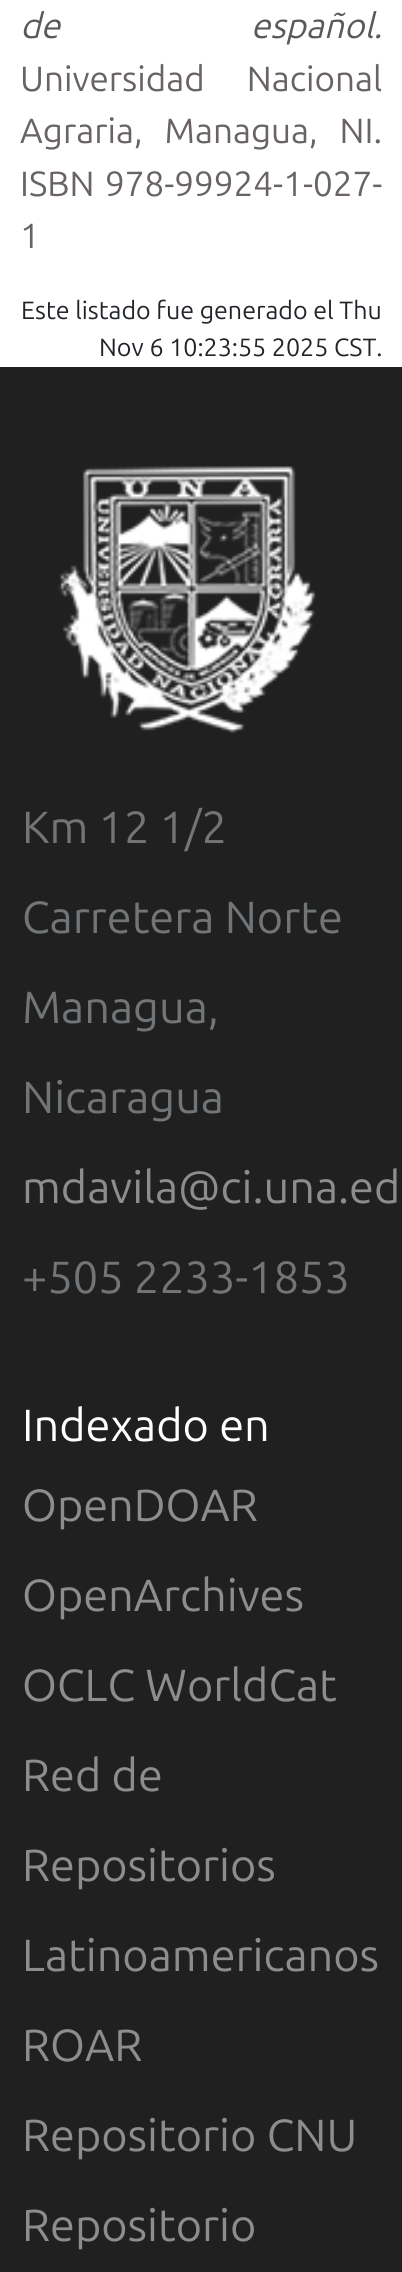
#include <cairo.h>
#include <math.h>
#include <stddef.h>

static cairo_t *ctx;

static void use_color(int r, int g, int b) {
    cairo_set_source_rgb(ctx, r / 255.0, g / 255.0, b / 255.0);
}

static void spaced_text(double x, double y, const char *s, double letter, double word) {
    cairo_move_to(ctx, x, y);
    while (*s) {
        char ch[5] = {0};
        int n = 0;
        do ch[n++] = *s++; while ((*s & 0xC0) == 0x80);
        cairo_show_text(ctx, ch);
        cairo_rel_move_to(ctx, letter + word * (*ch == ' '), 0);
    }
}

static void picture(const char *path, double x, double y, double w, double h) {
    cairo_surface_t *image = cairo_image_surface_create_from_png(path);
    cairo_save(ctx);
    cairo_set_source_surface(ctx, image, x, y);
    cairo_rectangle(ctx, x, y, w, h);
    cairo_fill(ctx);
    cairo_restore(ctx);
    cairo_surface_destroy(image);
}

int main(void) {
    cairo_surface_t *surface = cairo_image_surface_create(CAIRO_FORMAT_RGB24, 402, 2272);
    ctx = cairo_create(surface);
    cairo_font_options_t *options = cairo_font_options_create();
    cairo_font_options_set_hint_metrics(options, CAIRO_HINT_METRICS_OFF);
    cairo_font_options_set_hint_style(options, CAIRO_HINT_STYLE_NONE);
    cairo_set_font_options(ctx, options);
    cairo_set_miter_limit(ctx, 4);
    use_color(255, 255, 255);
    cairo_paint(ctx);
    cairo_select_font_face(ctx, "Ubuntu", CAIRO_FONT_SLANT_ITALIC, CAIRO_FONT_WEIGHT_NORMAL);
    cairo_set_font_size(ctx, 35);
    use_color(89, 89, 89);
    spaced_text(20, 38, "de español.", 0, 183);
    cairo_select_font_face(ctx, "Ubuntu", CAIRO_FONT_SLANT_NORMAL, CAIRO_FONT_WEIGHT_NORMAL);
    use_color(105, 99, 99);
    spaced_text(20, 91, "Universidad Nacional", 0, 34);
    spaced_text(20, 143, "Agraria, Managua, NI.", 0, 14);
    cairo_move_to(ctx, 20, 196);
    cairo_show_text(ctx, "ISBN");
    cairo_move_to(ctx, 105, 196);
    cairo_show_text(ctx, "978-99924-1-027-");
    cairo_move_to(ctx, 20, 248);
    cairo_show_text(ctx, "1");
    cairo_set_font_size(ctx, 25);
    use_color(33, 37, 41);
    cairo_move_to(ctx, 21, 319);
    cairo_show_text(ctx, "Este listado fue generado el Thu");
    cairo_move_to(ctx, 99, 356);
    cairo_show_text(ctx, "Nov 6 10:23:55 2025 CST.");
    use_color(32, 32, 32);
    cairo_rectangle(ctx, 0, 367, 402, 1905);
    cairo_fill(ctx);
    picture("img1.png", 58, 466, 258, 267);
    cairo_set_font_size(ctx, 45);
    use_color(114, 117, 119);
    cairo_move_to(ctx, 22, 843);
    cairo_show_text(ctx, "Km 12 1/2");
    cairo_move_to(ctx, 22, 933);
    cairo_show_text(ctx, "Carretera Norte");
    cairo_move_to(ctx, 22, 1023);
    cairo_show_text(ctx, "Managua,");
    cairo_move_to(ctx, 22, 1113);
    cairo_show_text(ctx, "Nicaragua");
    use_color(141, 141, 141);
    cairo_move_to(ctx, 22, 1203);
    cairo_show_text(ctx, "mdavila@ci.una.ed");
    use_color(114, 117, 119);
    cairo_move_to(ctx, 22, 1293);
    cairo_show_text(ctx, "+505 2233-1853");
    use_color(255, 255, 255);
    cairo_move_to(ctx, 22, 1441);
    cairo_show_text(ctx, "Indexado en");
    use_color(141, 141, 141);
    cairo_move_to(ctx, 22, 1521);
    cairo_show_text(ctx, "OpenDOAR");
    cairo_move_to(ctx, 22, 1611);
    cairo_show_text(ctx, "OpenArchives");
    cairo_move_to(ctx, 22, 1701);
    cairo_show_text(ctx, "OCLC WorldCat");
    cairo_move_to(ctx, 22, 1791);
    cairo_show_text(ctx, "Red de");
    cairo_move_to(ctx, 22, 1881);
    cairo_show_text(ctx, "Repositorios");
    cairo_move_to(ctx, 22, 1971);
    cairo_show_text(ctx, "Latinoamericanos");
    cairo_move_to(ctx, 22, 2061);
    cairo_show_text(ctx, "ROAR");
    cairo_move_to(ctx, 22, 2151);
    cairo_show_text(ctx, "Repositorio CNU");
    cairo_move_to(ctx, 22, 2241);
    cairo_show_text(ctx, "Repositorio");
    cairo_surface_write_to_png(surface, "result.png");
    cairo_font_options_destroy(options);
    cairo_destroy(ctx);
    cairo_surface_destroy(surface);
    return 0;
}
